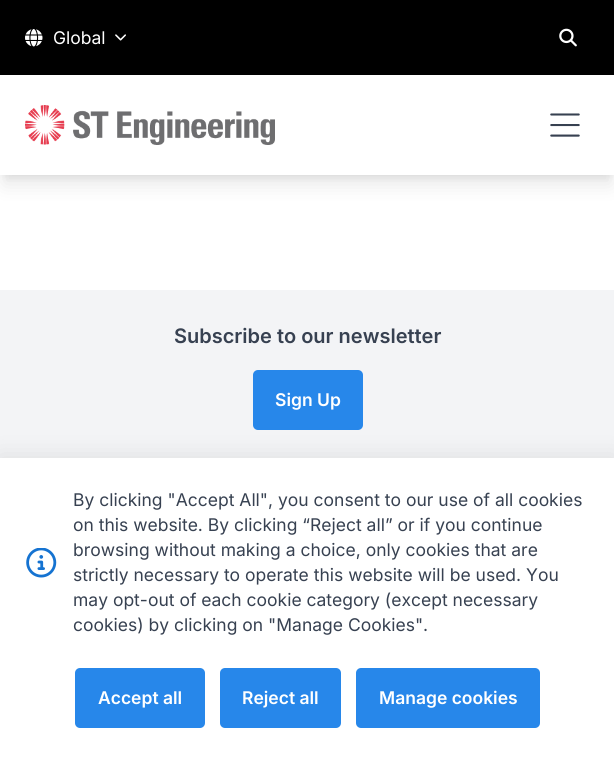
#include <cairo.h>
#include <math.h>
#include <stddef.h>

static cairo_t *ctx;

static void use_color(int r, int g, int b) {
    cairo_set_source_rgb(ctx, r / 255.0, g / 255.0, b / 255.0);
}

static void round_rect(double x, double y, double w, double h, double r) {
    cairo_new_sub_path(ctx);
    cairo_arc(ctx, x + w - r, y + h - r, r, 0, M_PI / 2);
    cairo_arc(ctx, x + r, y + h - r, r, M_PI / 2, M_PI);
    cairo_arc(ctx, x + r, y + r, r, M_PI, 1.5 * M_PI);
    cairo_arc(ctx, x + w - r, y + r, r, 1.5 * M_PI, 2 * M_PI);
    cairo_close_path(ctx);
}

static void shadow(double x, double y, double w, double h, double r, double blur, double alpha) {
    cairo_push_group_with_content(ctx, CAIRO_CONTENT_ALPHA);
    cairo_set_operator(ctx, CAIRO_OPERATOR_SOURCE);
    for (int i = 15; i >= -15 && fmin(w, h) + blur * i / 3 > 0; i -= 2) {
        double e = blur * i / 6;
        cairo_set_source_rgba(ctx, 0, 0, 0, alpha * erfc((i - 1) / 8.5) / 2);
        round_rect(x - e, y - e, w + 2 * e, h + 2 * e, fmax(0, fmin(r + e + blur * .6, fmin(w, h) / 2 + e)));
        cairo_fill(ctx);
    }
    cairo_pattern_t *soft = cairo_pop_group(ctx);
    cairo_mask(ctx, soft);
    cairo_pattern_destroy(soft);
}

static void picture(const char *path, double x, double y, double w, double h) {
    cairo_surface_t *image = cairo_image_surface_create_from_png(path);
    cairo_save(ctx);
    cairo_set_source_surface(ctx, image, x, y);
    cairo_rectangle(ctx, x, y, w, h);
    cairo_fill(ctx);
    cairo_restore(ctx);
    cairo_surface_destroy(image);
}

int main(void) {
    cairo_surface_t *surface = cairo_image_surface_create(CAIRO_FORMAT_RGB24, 614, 757);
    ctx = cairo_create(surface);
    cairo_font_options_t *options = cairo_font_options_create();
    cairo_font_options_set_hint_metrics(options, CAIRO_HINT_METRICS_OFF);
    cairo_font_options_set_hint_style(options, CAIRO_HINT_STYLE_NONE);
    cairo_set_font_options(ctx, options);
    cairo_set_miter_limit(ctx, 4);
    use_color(255, 255, 255);
    cairo_paint(ctx);
    use_color(0, 0, 0);
    shadow(5, 10, 605, 165, 0, 4, 0.1);
    shadow(4, 16, 607, 168, 0, 9.5, 0.1);
    use_color(0, 0, 0);
    cairo_rectangle(ctx, 0, 0, 614, 75);
    cairo_fill(ctx);
    picture("img1.png", 25, 29, 18, 18);
    cairo_select_font_face(ctx, "Inter", CAIRO_FONT_SLANT_NORMAL, CAIRO_FONT_WEIGHT_NORMAL);
    cairo_set_font_size(ctx, 17.5);
    use_color(255, 255, 255);
    cairo_move_to(ctx, 53, 44);
    cairo_show_text(ctx, "Global");
    picture("img2.png", 115, 34, 11, 7);
    picture("img3.png", 559, 28, 18, 19);
    cairo_rectangle(ctx, 0, 75, 614, 100);
    cairo_fill(ctx);
    picture("img4.png", 25, 105, 250, 40);
    picture("img5.png", 550, 113, 30, 24);
    use_color(243, 244, 246);
    cairo_rectangle(ctx, 0, 290, 614, 168);
    cairo_fill(ctx);
    cairo_select_font_face(ctx, "Inter SemiBold", CAIRO_FONT_SLANT_NORMAL, CAIRO_FONT_WEIGHT_NORMAL);
    cairo_set_font_size(ctx, 20);
    use_color(55, 65, 81);
    cairo_move_to(ctx, 174, 343);
    cairo_show_text(ctx, "Subscribe to our newsletter");
    use_color(39, 135, 234);
    round_rect(253, 370, 110, 60, 5);
    cairo_fill(ctx);
    cairo_set_font_size(ctx, 17.5);
    use_color(255, 255, 255);
    cairo_move_to(ctx, 275, 406);
    cairo_show_text(ctx, "Sign Up");
    use_color(0, 0, 0);
    shadow(0, 458, 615, 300, 0, 12.5, 0.1);
    use_color(255, 255, 255);
    cairo_rectangle(ctx, 0, 458, 614, 299);
    cairo_fill(ctx);
    picture("img6.png", 26, 548, 31, 30);
    cairo_select_font_face(ctx, "Inter", CAIRO_FONT_SLANT_NORMAL, CAIRO_FONT_WEIGHT_NORMAL);
    use_color(55, 65, 81);
    cairo_move_to(ctx, 73, 506);
    cairo_show_text(ctx, "By clicking \"Accept All\", you consent to our use of all cookies");
    cairo_move_to(ctx, 73, 531);
    cairo_show_text(ctx, "on this website. By clicking “Reject all” or if you continue");
    cairo_move_to(ctx, 73, 556);
    cairo_show_text(ctx, "browsing without making a choice, only cookies that are");
    cairo_move_to(ctx, 73, 581);
    cairo_show_text(ctx, "strictly necessary to operate this website will be used. You");
    cairo_move_to(ctx, 73, 606);
    cairo_show_text(ctx, "may opt-out of each cookie category (except necessary");
    cairo_move_to(ctx, 73, 631);
    cairo_show_text(ctx, "cookies) by clicking on \"Manage Cookies\".");
    use_color(39, 135, 234);
    round_rect(75, 668, 130, 60, 5);
    cairo_fill(ctx);
    cairo_select_font_face(ctx, "Inter SemiBold", CAIRO_FONT_SLANT_NORMAL, CAIRO_FONT_WEIGHT_NORMAL);
    use_color(255, 255, 255);
    cairo_move_to(ctx, 98, 704);
    cairo_show_text(ctx, "Accept all");
    use_color(39, 135, 234);
    round_rect(220, 668, 121, 60, 5);
    cairo_fill(ctx);
    use_color(255, 255, 255);
    cairo_move_to(ctx, 242, 704);
    cairo_show_text(ctx, "Reject all");
    use_color(39, 135, 234);
    round_rect(356, 668, 184, 60, 5);
    cairo_fill(ctx);
    use_color(255, 255, 255);
    cairo_move_to(ctx, 379, 704);
    cairo_show_text(ctx, "Manage cookies");
    cairo_surface_write_to_png(surface, "result.png");
    cairo_font_options_destroy(options);
    cairo_destroy(ctx);
    cairo_surface_destroy(surface);
    return 0;
}
